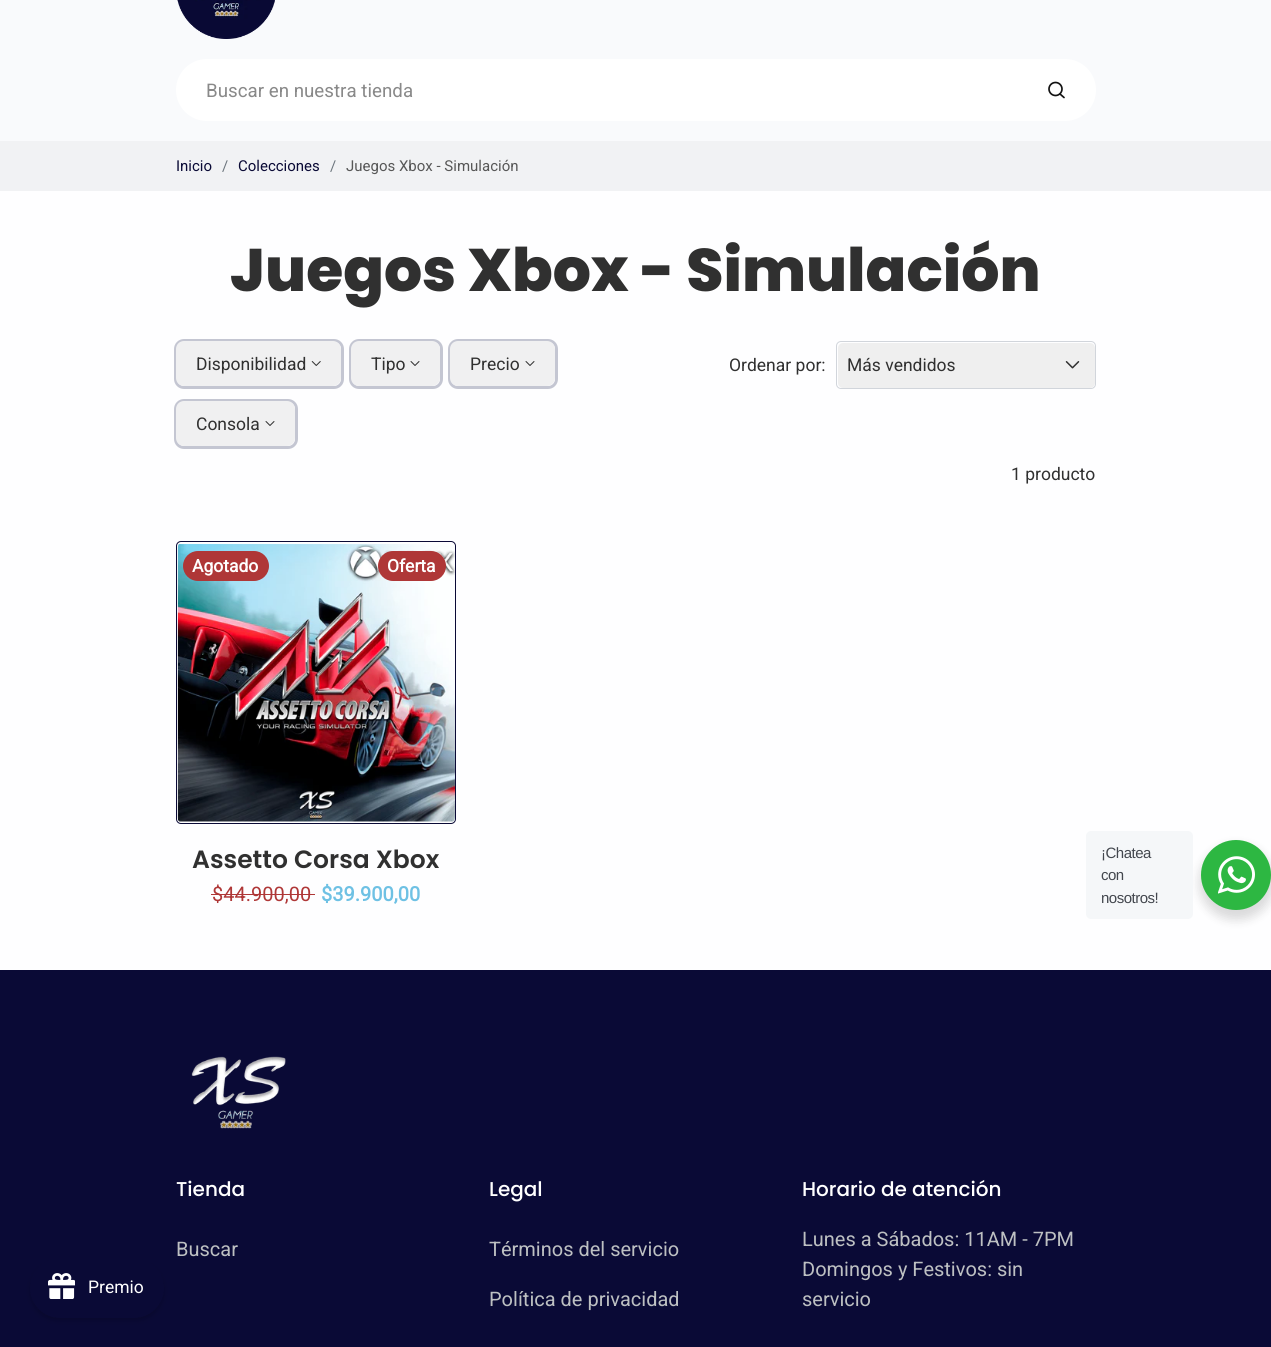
#include <cairo.h>
#include <math.h>
#include <stddef.h>

static cairo_t *ctx;

static void use_color(int r, int g, int b) {
    cairo_set_source_rgb(ctx, r / 255.0, g / 255.0, b / 255.0);
}

static void spaced_text(double x, double y, const char *s, double letter, double word) {
    cairo_move_to(ctx, x, y);
    while (*s) {
        char ch[5] = {0};
        int n = 0;
        do ch[n++] = *s++; while ((*s & 0xC0) == 0x80);
        cairo_show_text(ctx, ch);
        cairo_rel_move_to(ctx, letter + word * (*ch == ' '), 0);
    }
}

static void round_rect(double x, double y, double w, double h, double r) {
    cairo_new_sub_path(ctx);
    cairo_arc(ctx, x + w - r, y + h - r, r, 0, M_PI / 2);
    cairo_arc(ctx, x + r, y + h - r, r, M_PI / 2, M_PI);
    cairo_arc(ctx, x + r, y + r, r, M_PI, 1.5 * M_PI);
    cairo_arc(ctx, x + w - r, y + r, r, 1.5 * M_PI, 2 * M_PI);
    cairo_close_path(ctx);
}

static void shadow(double x, double y, double w, double h, double r, double blur, double alpha) {
    cairo_push_group_with_content(ctx, CAIRO_CONTENT_ALPHA);
    cairo_set_operator(ctx, CAIRO_OPERATOR_SOURCE);
    for (int i = 15; i >= -15 && fmin(w, h) + blur * i / 3 > 0; i -= 2) {
        double e = blur * i / 6;
        cairo_set_source_rgba(ctx, 0, 0, 0, alpha * erfc((i - 1) / 8.5) / 2);
        round_rect(x - e, y - e, w + 2 * e, h + 2 * e, fmax(0, fmin(r + e + blur * .6, fmin(w, h) / 2 + e)));
        cairo_fill(ctx);
    }
    cairo_pattern_t *soft = cairo_pop_group(ctx);
    cairo_mask(ctx, soft);
    cairo_pattern_destroy(soft);
}

static void picture(const char *path, double x, double y, double w, double h) {
    cairo_surface_t *image = cairo_image_surface_create_from_png(path);
    cairo_save(ctx);
    cairo_set_source_surface(ctx, image, x, y);
    cairo_rectangle(ctx, x, y, w, h);
    cairo_fill(ctx);
    cairo_restore(ctx);
    cairo_surface_destroy(image);
}

int main(void) {
    cairo_surface_t *surface = cairo_image_surface_create(CAIRO_FORMAT_RGB24, 1271, 1347);
    ctx = cairo_create(surface);
    cairo_font_options_t *options = cairo_font_options_create();
    cairo_font_options_set_hint_metrics(options, CAIRO_HINT_METRICS_OFF);
    cairo_font_options_set_hint_style(options, CAIRO_HINT_STYLE_NONE);
    cairo_set_font_options(ctx, options);
    cairo_set_miter_limit(ctx, 4);
    use_color(254, 254, 255);
    cairo_paint(ctx);
    use_color(249, 250, 252);
    cairo_rectangle(ctx, 0, 0, 1271, 141);
    cairo_fill(ctx);
    picture("img1.png", 177, 0, 98, 39);
    use_color(255, 255, 255);
    round_rect(176, 59, 920, 62, 31);
    cairo_fill(ctx);
    cairo_select_font_face(ctx, "Roboto", CAIRO_FONT_SLANT_NORMAL, CAIRO_FONT_WEIGHT_NORMAL);
    cairo_set_font_size(ctx, 18.75);
    use_color(137, 137, 137);
    cairo_move_to(ctx, 206, 97);
    cairo_show_text(ctx, "Buscar en nuestra tienda");
    cairo_new_path(ctx);
    cairo_arc(ctx, 1055.5, 89, 6.5, 0, 2 * M_PI);
    use_color(18, 18, 18);
    cairo_set_line_width(ctx, 1.7);
    cairo_stroke(ctx);
    cairo_new_path(ctx);
    cairo_move_to(ctx, 1064, 97.5);
    cairo_line_to(ctx, 1060, 94);
    cairo_set_line_cap(ctx, CAIRO_LINE_CAP_ROUND);
    cairo_set_line_join(ctx, CAIRO_LINE_JOIN_ROUND);
    cairo_stroke(ctx);
    use_color(241, 242, 244);
    cairo_rectangle(ctx, 0, 141, 1271, 50);
    cairo_fill(ctx);
    cairo_set_font_size(ctx, 15);
    use_color(10, 10, 54);
    cairo_move_to(ctx, 176, 171);
    cairo_show_text(ctx, "Inicio");
    use_color(108, 117, 125);
    cairo_move_to(ctx, 222, 171);
    cairo_show_text(ctx, "/");
    use_color(10, 10, 54);
    cairo_move_to(ctx, 238, 171);
    cairo_show_text(ctx, "Colecciones");
    use_color(108, 117, 125);
    cairo_move_to(ctx, 330, 171);
    cairo_show_text(ctx, "/");
    use_color(87, 87, 87);
    cairo_move_to(ctx, 346, 171);
    cairo_show_text(ctx, "Juegos Xbox - Simulación");
    cairo_select_font_face(ctx, "Poppins ExtraBold", CAIRO_FONT_SLANT_NORMAL, CAIRO_FONT_WEIGHT_NORMAL);
    cairo_set_font_size(ctx, 60);
    use_color(48, 48, 48);
    cairo_move_to(ctx, 230, 291);
    cairo_show_text(ctx, "Juegos Xbox - Simulación");
    round_rect(175.5, 340.5, 167, 47, 8.5);
    use_color(196, 198, 210);
    cairo_set_line_width(ctx, 3);
    cairo_set_line_cap(ctx, CAIRO_LINE_CAP_BUTT);
    cairo_set_line_join(ctx, CAIRO_LINE_JOIN_MITER);
    cairo_stroke(ctx);
    use_color(240, 240, 241);
    round_rect(176, 341, 165, 45, 8);
    cairo_fill(ctx);
    cairo_select_font_face(ctx, "Roboto", CAIRO_FONT_SLANT_NORMAL, CAIRO_FONT_WEIGHT_NORMAL);
    cairo_set_font_size(ctx, 17.5);
    use_color(48, 48, 48);
    cairo_move_to(ctx, 196, 370);
    cairo_show_text(ctx, "Disponibilidad");
    picture("img2.png", 311, 361, 10, 5);
    round_rect(350.5, 340.5, 91, 47, 8.5);
    use_color(196, 198, 210);
    cairo_stroke(ctx);
    use_color(240, 240, 241);
    round_rect(351, 341, 89, 45, 8);
    cairo_fill(ctx);
    use_color(48, 48, 48);
    cairo_move_to(ctx, 371, 370);
    cairo_show_text(ctx, "Tipo");
    picture("img3.png", 410, 361, 10, 5);
    round_rect(449.5, 340.5, 107, 47, 8.5);
    use_color(196, 198, 210);
    cairo_stroke(ctx);
    use_color(240, 240, 241);
    round_rect(450, 341, 105, 45, 8);
    cairo_fill(ctx);
    use_color(48, 48, 48);
    cairo_move_to(ctx, 470, 370);
    cairo_show_text(ctx, "Precio");
    picture("img3.png", 525, 361, 10, 5);
    round_rect(175.5, 400.5, 121, 47, 8.5);
    use_color(196, 198, 210);
    cairo_stroke(ctx);
    use_color(240, 240, 241);
    round_rect(176, 401, 119, 45, 8);
    cairo_fill(ctx);
    use_color(48, 48, 48);
    cairo_move_to(ctx, 196, 430);
    cairo_show_text(ctx, "Consola");
    picture("img3.png", 265, 421, 10, 5);
    cairo_move_to(ctx, 729, 371);
    cairo_show_text(ctx, "Ordenar por:");
    round_rect(836.5, 341.5, 259, 47, 4.5);
    use_color(209, 213, 219);
    cairo_set_line_width(ctx, 1);
    cairo_stroke(ctx);
    use_color(239, 239, 239);
    round_rect(838, 343, 257, 45, 5);
    cairo_fill(ctx);
    use_color(48, 48, 48);
    cairo_move_to(ctx, 847, 371);
    cairo_show_text(ctx, "Más vendidos");
    picture("img4.png", 1065, 361, 15, 8);
    cairo_move_to(ctx, 1011, 480);
    cairo_show_text(ctx, "1 producto");
    round_rect(176.5, 541.5, 279, 282, 4.5);
    use_color(10, 10, 54);
    cairo_stroke(ctx);
    picture("img5.png", 177, 544, 278, 278);
    use_color(175, 55, 55);
    round_rect(183, 551, 86, 30, 15);
    cairo_fill(ctx);
    cairo_select_font_face(ctx, "Roboto", CAIRO_FONT_SLANT_NORMAL, CAIRO_FONT_WEIGHT_BOLD);
    use_color(255, 255, 255);
    cairo_move_to(ctx, 192, 572);
    cairo_show_text(ctx, "Agotado");
    use_color(175, 55, 55);
    round_rect(378, 551, 68, 30, 15);
    cairo_fill(ctx);
    use_color(255, 255, 255);
    cairo_move_to(ctx, 387, 572);
    cairo_show_text(ctx, "Oferta");
    cairo_select_font_face(ctx, "Poppins SemiBold", CAIRO_FONT_SLANT_NORMAL, CAIRO_FONT_WEIGHT_NORMAL);
    cairo_set_font_size(ctx, 25);
    use_color(48, 48, 48);
    cairo_move_to(ctx, 192, 868);
    cairo_show_text(ctx, "Assetto Corsa Xbox");
    cairo_select_font_face(ctx, "Roboto", CAIRO_FONT_SLANT_NORMAL, CAIRO_FONT_WEIGHT_NORMAL);
    cairo_set_font_size(ctx, 20);
    use_color(175, 55, 55);
    cairo_move_to(ctx, 212, 901);
    cairo_show_text(ctx, "$44.900,00");
    cairo_rectangle(ctx, 211, 894, 104, 1);
    cairo_fill(ctx);
    cairo_select_font_face(ctx, "Roboto", CAIRO_FONT_SLANT_NORMAL, CAIRO_FONT_WEIGHT_BOLD);
    use_color(110, 193, 228);
    cairo_move_to(ctx, 321, 901);
    cairo_show_text(ctx, "$39.900,00");
    use_color(0, 0, 0);
    shadow(1199, 845, 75, 75, 37.5, 5, 0.14);
    use_color(245, 247, 249);
    round_rect(1086, 831, 107, 88, 5);
    cairo_fill(ctx);
    cairo_select_font_face(ctx, "Liberation Sans", CAIRO_FONT_SLANT_NORMAL, CAIRO_FONT_WEIGHT_NORMAL);
    cairo_set_font_size(ctx, 15);
    use_color(67, 71, 78);
    spaced_text(1101, 858, "¡Chatea", -0.5, 0);
    spaced_text(1101, 880, "con", -0.5, 0);
    spaced_text(1101, 903, "nosotros!", -0.5, 0);
    use_color(45, 183, 66);
    cairo_new_path(ctx);
    cairo_arc(ctx, 1236, 875, 35, 0, 2 * M_PI);
    cairo_fill(ctx);
    picture("img6.png", 1218, 856, 37, 38);
    use_color(10, 10, 54);
    cairo_rectangle(ctx, 0, 970, 1271, 377);
    cairo_fill(ctx);
    use_color(0, 0, 0);
    shadow(31, 1263, 132, 57, 28.5, 3, 0.2);
    use_color(10, 10, 54);
    round_rect(30, 1258, 134, 60, 30);
    cairo_fill(ctx);
    picture("img7.png", 48, 1273, 27, 26);
    cairo_select_font_face(ctx, "Roboto", CAIRO_FONT_SLANT_NORMAL, CAIRO_FONT_WEIGHT_NORMAL);
    cairo_set_font_size(ctx, 17.5);
    use_color(255, 255, 255);
    cairo_move_to(ctx, 88, 1293);
    cairo_show_text(ctx, "Premio");
    picture("img8.png", 191, 1056, 95, 73);
    cairo_select_font_face(ctx, "Poppins Medium", CAIRO_FONT_SLANT_NORMAL, CAIRO_FONT_WEIGHT_NORMAL);
    cairo_set_font_size(ctx, 20);
    cairo_move_to(ctx, 176, 1196);
    cairo_show_text(ctx, "Tienda");
    cairo_select_font_face(ctx, "Roboto", CAIRO_FONT_SLANT_NORMAL, CAIRO_FONT_WEIGHT_NORMAL);
    use_color(189, 192, 194);
    cairo_move_to(ctx, 176, 1256);
    cairo_show_text(ctx, "Buscar");
    cairo_select_font_face(ctx, "Poppins Medium", CAIRO_FONT_SLANT_NORMAL, CAIRO_FONT_WEIGHT_NORMAL);
    use_color(255, 255, 255);
    cairo_move_to(ctx, 489, 1196);
    cairo_show_text(ctx, "Legal");
    cairo_select_font_face(ctx, "Roboto", CAIRO_FONT_SLANT_NORMAL, CAIRO_FONT_WEIGHT_NORMAL);
    use_color(189, 192, 194);
    cairo_move_to(ctx, 489, 1256);
    cairo_show_text(ctx, "Términos del servicio");
    cairo_move_to(ctx, 489, 1306);
    cairo_show_text(ctx, "Política de privacidad");
    cairo_select_font_face(ctx, "Poppins Medium", CAIRO_FONT_SLANT_NORMAL, CAIRO_FONT_WEIGHT_NORMAL);
    use_color(255, 255, 255);
    cairo_move_to(ctx, 802, 1196);
    cairo_show_text(ctx, "Horario de atención");
    cairo_select_font_face(ctx, "Roboto", CAIRO_FONT_SLANT_NORMAL, CAIRO_FONT_WEIGHT_NORMAL);
    use_color(189, 192, 194);
    cairo_move_to(ctx, 802, 1246);
    cairo_show_text(ctx, "Lunes a Sábados: 11AM - 7PM");
    cairo_move_to(ctx, 802, 1276);
    cairo_show_text(ctx, "Domingos y Festivos: sin");
    cairo_move_to(ctx, 802, 1306);
    cairo_show_text(ctx, "servicio");
    cairo_surface_write_to_png(surface, "result.png");
    cairo_font_options_destroy(options);
    cairo_destroy(ctx);
    cairo_surface_destroy(surface);
    return 0;
}
